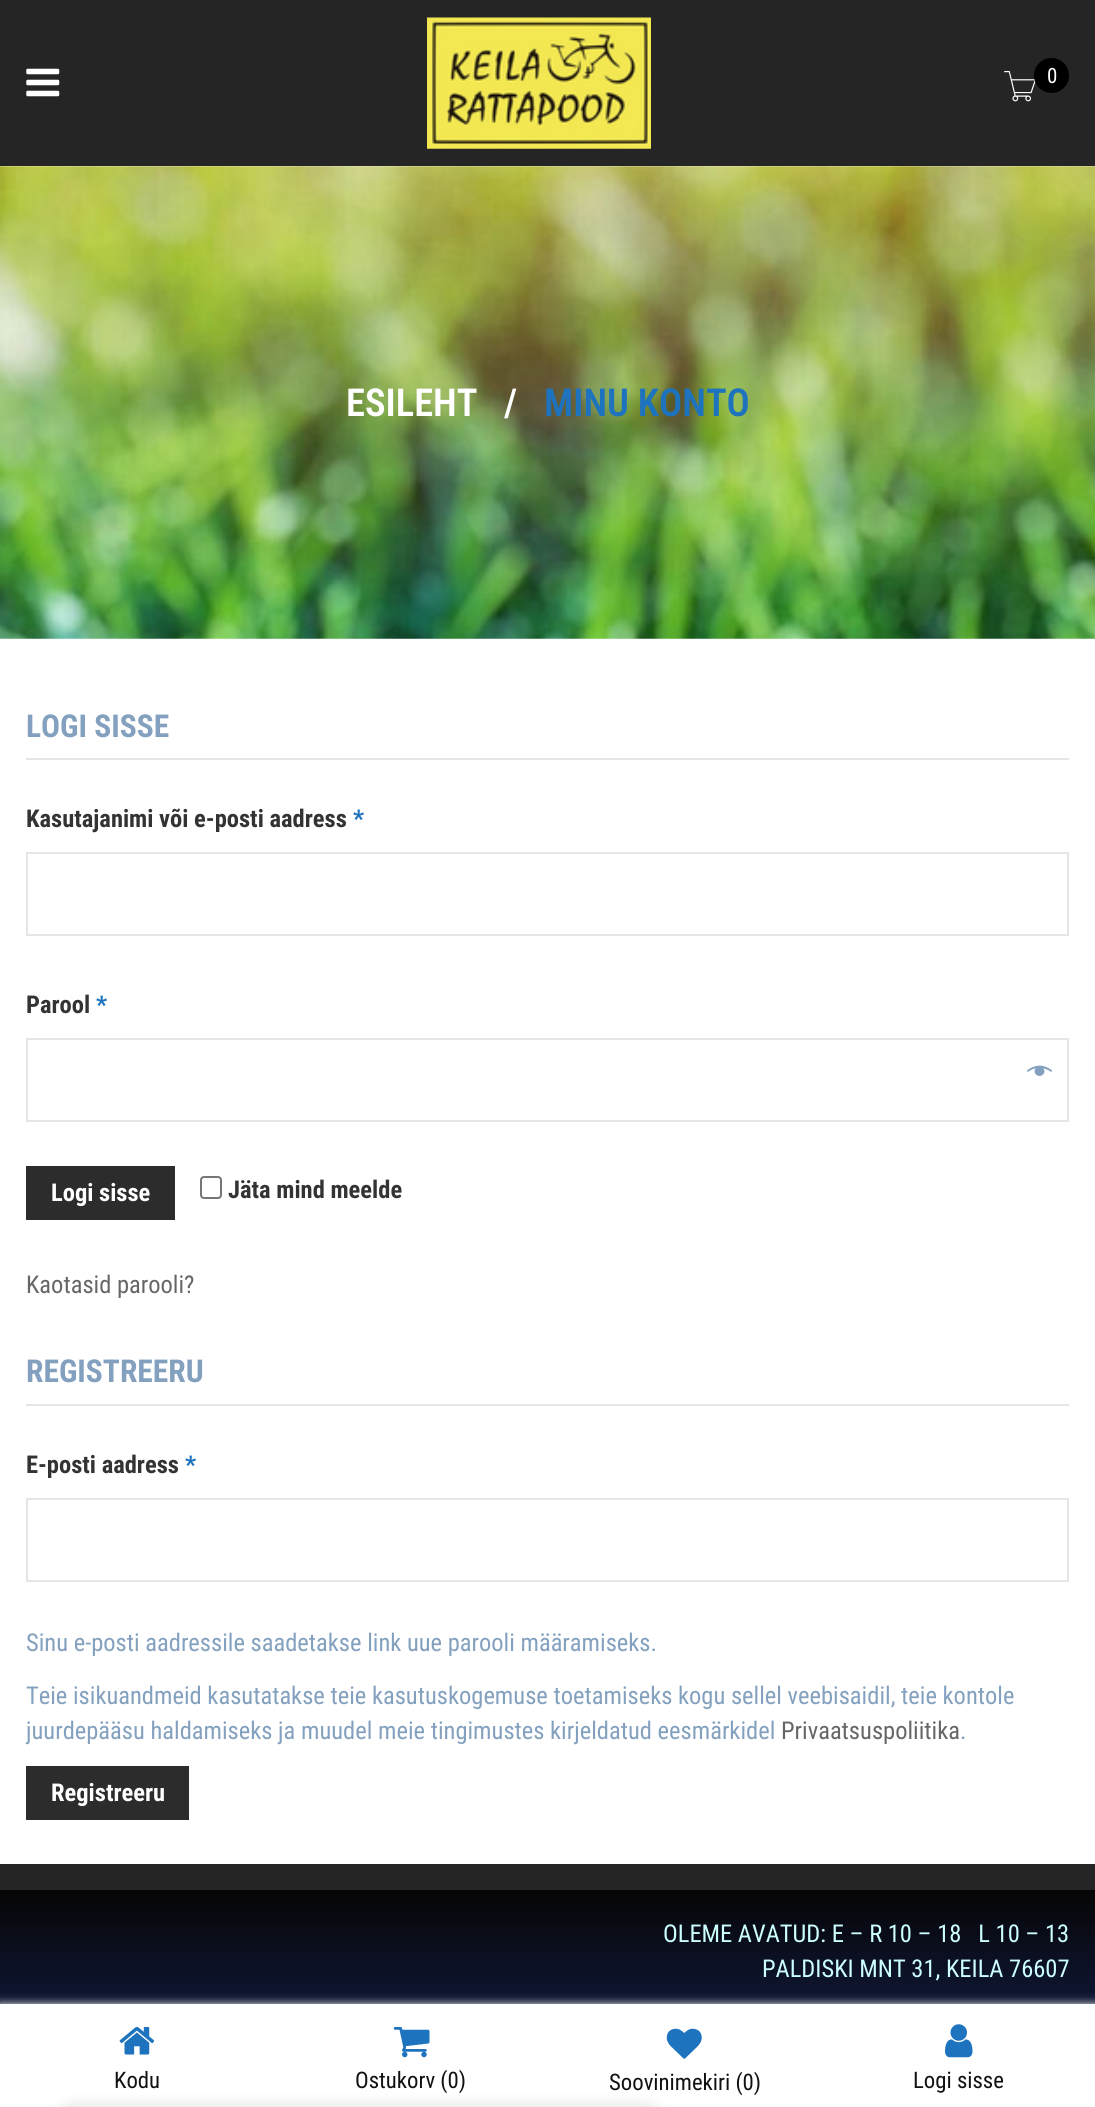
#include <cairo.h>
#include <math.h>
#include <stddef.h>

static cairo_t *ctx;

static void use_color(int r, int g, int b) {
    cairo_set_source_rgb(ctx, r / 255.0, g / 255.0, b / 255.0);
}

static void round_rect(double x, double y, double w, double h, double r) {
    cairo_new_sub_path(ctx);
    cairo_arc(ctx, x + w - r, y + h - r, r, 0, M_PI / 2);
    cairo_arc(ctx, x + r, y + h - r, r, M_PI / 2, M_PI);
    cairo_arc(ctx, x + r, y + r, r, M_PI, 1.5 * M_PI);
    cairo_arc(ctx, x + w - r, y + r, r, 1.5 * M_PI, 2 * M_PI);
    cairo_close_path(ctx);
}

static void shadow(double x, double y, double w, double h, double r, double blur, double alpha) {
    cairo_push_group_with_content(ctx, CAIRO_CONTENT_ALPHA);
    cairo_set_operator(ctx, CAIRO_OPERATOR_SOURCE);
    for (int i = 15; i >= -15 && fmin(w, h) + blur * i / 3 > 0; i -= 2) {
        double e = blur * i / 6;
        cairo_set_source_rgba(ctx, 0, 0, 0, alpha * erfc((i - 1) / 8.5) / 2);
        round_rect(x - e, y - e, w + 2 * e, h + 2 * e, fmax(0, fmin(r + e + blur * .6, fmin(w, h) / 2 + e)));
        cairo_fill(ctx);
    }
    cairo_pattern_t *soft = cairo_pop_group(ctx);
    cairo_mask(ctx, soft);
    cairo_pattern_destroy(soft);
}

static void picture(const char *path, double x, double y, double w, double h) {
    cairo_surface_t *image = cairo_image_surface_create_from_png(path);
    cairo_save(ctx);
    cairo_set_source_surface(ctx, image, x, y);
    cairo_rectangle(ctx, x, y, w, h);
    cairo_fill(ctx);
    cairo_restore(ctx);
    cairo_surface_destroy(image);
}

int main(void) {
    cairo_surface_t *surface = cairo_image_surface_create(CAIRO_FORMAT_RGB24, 1095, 2107);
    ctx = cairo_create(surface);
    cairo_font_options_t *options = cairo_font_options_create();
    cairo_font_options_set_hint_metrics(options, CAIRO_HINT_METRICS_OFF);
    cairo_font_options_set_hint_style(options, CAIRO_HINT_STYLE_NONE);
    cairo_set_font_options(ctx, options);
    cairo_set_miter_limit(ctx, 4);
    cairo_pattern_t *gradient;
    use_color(255, 255, 255);
    cairo_paint(ctx);
    use_color(37, 37, 37);
    cairo_rectangle(ctx, 0, 0, 1095, 166);
    cairo_fill(ctx);
    picture("img1.png", 26, 68, 34, 29);
    picture("img2.png", 427, 17, 224, 132);
    picture("img3.png", 1004, 71, 32, 31);
    use_color(0, 0, 0);
    cairo_arc(ctx, 1051.5, 75.5, 17.5, 0, 2 * M_PI);
    cairo_fill(ctx);
    cairo_select_font_face(ctx, "Roboto Condensed", CAIRO_FONT_SLANT_NORMAL, CAIRO_FONT_WEIGHT_NORMAL);
    cairo_set_font_size(ctx, 21);
    use_color(255, 255, 255);
    cairo_move_to(ctx, 1047, 83);
    cairo_show_text(ctx, "0");
    picture("img4.png", 0, 166, 1095, 473);
    cairo_select_font_face(ctx, "Roboto Condensed SemiBold", CAIRO_FONT_SLANT_NORMAL, CAIRO_FONT_WEIGHT_NORMAL);
    cairo_set_font_size(ctx, 38.5);
    cairo_move_to(ctx, 346, 416);
    cairo_show_text(ctx, "ESILEHT");
    cairo_move_to(ctx, 504, 416);
    cairo_show_text(ctx, "/");
    use_color(30, 115, 190);
    cairo_move_to(ctx, 544, 416);
    cairo_show_text(ctx, "MINU KONTO");
    cairo_select_font_face(ctx, "Roboto Condensed", CAIRO_FONT_SLANT_NORMAL, CAIRO_FONT_WEIGHT_BOLD);
    cairo_set_font_size(ctx, 31.5);
    use_color(131, 161, 191);
    cairo_move_to(ctx, 26, 737);
    cairo_show_text(ctx, "LOGI SISSE");
    use_color(229, 229, 229);
    cairo_rectangle(ctx, 26, 758, 1043, 2);
    cairo_fill(ctx);
    cairo_set_font_size(ctx, 24.5);
    use_color(51, 51, 51);
    cairo_move_to(ctx, 26, 827);
    cairo_show_text(ctx, "Kasutajanimi või e-posti aadress");
    use_color(30, 115, 190);
    cairo_move_to(ctx, 353, 827);
    cairo_show_text(ctx, "*");
    cairo_rectangle(ctx, 27, 853, 1041, 82);
    use_color(229, 229, 229);
    cairo_stroke(ctx);
    use_color(51, 51, 51);
    cairo_move_to(ctx, 26, 1013);
    cairo_show_text(ctx, "Parool");
    use_color(30, 115, 190);
    cairo_move_to(ctx, 96, 1013);
    cairo_show_text(ctx, "*");
    cairo_rectangle(ctx, 27, 1039, 1041, 82);
    use_color(229, 229, 229);
    cairo_stroke(ctx);
    picture("img5.png", 1027, 1065, 25, 11);
    use_color(44, 44, 44);
    cairo_rectangle(ctx, 26, 1166, 149, 54);
    cairo_fill(ctx);
    use_color(255, 255, 255);
    cairo_move_to(ctx, 51, 1201);
    cairo_show_text(ctx, "Logi sisse");
    round_rect(201, 1177, 20, 21, 3);
    use_color(118, 118, 118);
    cairo_stroke(ctx);
    use_color(51, 51, 51);
    cairo_move_to(ctx, 228, 1198);
    cairo_show_text(ctx, "Jäta mind meelde");
    cairo_select_font_face(ctx, "Roboto Condensed", CAIRO_FONT_SLANT_NORMAL, CAIRO_FONT_WEIGHT_NORMAL);
    use_color(102, 102, 102);
    cairo_move_to(ctx, 26, 1293);
    cairo_show_text(ctx, "Kaotasid parooli?");
    cairo_select_font_face(ctx, "Roboto Condensed", CAIRO_FONT_SLANT_NORMAL, CAIRO_FONT_WEIGHT_BOLD);
    cairo_set_font_size(ctx, 31.5);
    use_color(131, 161, 191);
    cairo_move_to(ctx, 26, 1382);
    cairo_show_text(ctx, "REGISTREERU");
    use_color(229, 229, 229);
    cairo_rectangle(ctx, 26, 1404, 1043, 2);
    cairo_fill(ctx);
    cairo_set_font_size(ctx, 24.5);
    use_color(51, 51, 51);
    cairo_move_to(ctx, 26, 1473);
    cairo_show_text(ctx, "E-posti aadress");
    use_color(30, 115, 190);
    cairo_move_to(ctx, 185, 1473);
    cairo_show_text(ctx, "*");
    cairo_rectangle(ctx, 27, 1499, 1041, 82);
    use_color(229, 229, 229);
    cairo_stroke(ctx);
    cairo_select_font_face(ctx, "Roboto Condensed", CAIRO_FONT_SLANT_NORMAL, CAIRO_FONT_WEIGHT_NORMAL);
    use_color(131, 161, 191);
    cairo_move_to(ctx, 26, 1651);
    cairo_show_text(ctx, "Sinu e-posti aadressile saadetakse link uue parooli määramiseks.");
    cairo_move_to(ctx, 26, 1704);
    cairo_show_text(ctx, "Teie isikuandmeid kasutatakse teie kasutuskogemuse toetamiseks kogu sellel veebisaidil, teie kontole");
    cairo_move_to(ctx, 26, 1739);
    cairo_show_text(ctx, "juurdepääsu haldamiseks ja muudel meie tingimustes kirjeldatud eesmärkidel");
    use_color(102, 102, 102);
    cairo_move_to(ctx, 781, 1739);
    cairo_show_text(ctx, "Privaatsuspoliitika");
    use_color(131, 161, 191);
    cairo_move_to(ctx, 960, 1739);
    cairo_show_text(ctx, ".");
    use_color(44, 44, 44);
    cairo_rectangle(ctx, 26, 1766, 163, 54);
    cairo_fill(ctx);
    cairo_select_font_face(ctx, "Roboto Condensed", CAIRO_FONT_SLANT_NORMAL, CAIRO_FONT_WEIGHT_BOLD);
    use_color(255, 255, 255);
    cairo_move_to(ctx, 51, 1801);
    cairo_show_text(ctx, "Registreeru");
    use_color(37, 37, 37);
    cairo_rectangle(ctx, 0, 1864, 1095, 26);
    cairo_fill(ctx);
    gradient = cairo_pattern_create_linear(548, 1890, 548, 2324);
    cairo_pattern_add_color_stop_rgba(gradient, 0, 0.024, 0.024, 0.024, 1);
    cairo_pattern_add_color_stop_rgba(gradient, 1, 0.145, 0.259, 0.698, 1);
    cairo_set_source(ctx, gradient);
    cairo_pattern_destroy(gradient);
    cairo_rectangle(ctx, 0, 1890, 1095, 114);
    cairo_fill(ctx);
    cairo_select_font_face(ctx, "Roboto Condensed", CAIRO_FONT_SLANT_NORMAL, CAIRO_FONT_WEIGHT_NORMAL);
    use_color(204, 255, 255);
    cairo_move_to(ctx, 663, 1942);
    cairo_show_text(ctx, "OLEME AVATUD: E – R 10 – 18   L 10 – 13");
    cairo_move_to(ctx, 762, 1977);
    cairo_show_text(ctx, "PALDISKI MNT 31, KEILA 76607");
    use_color(241, 241, 241);
    shadow(0, 2004, 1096, 103, 0, 4.5, 1);
    use_color(255, 255, 255);
    cairo_rectangle(ctx, 0, 2004, 1095, 103);
    cairo_fill(ctx);
    picture("img6.png", 119, 2026, 36, 29);
    cairo_set_font_size(ctx, 22.75);
    use_color(17, 17, 17);
    cairo_move_to(ctx, 114, 2088);
    cairo_show_text(ctx, "Kodu");
    picture("img7.png", 393, 2027, 37, 31);
    cairo_move_to(ctx, 355, 2088);
    cairo_show_text(ctx, "Ostukorv (0)");
    picture("img8.png", 666, 2028, 36, 31);
    cairo_move_to(ctx, 609, 2090);
    cairo_show_text(ctx, "Soovinimekiri (0)");
    picture("img9.png", 945, 2024, 28, 34);
    cairo_move_to(ctx, 913, 2088);
    cairo_show_text(ctx, "Logi sisse");
    use_color(0, 0, 0);
    shadow(53, 2107, 612, 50, 26, 8, 0.14);
    cairo_surface_write_to_png(surface, "result.png");
    cairo_font_options_destroy(options);
    cairo_destroy(ctx);
    cairo_surface_destroy(surface);
    return 0;
}
